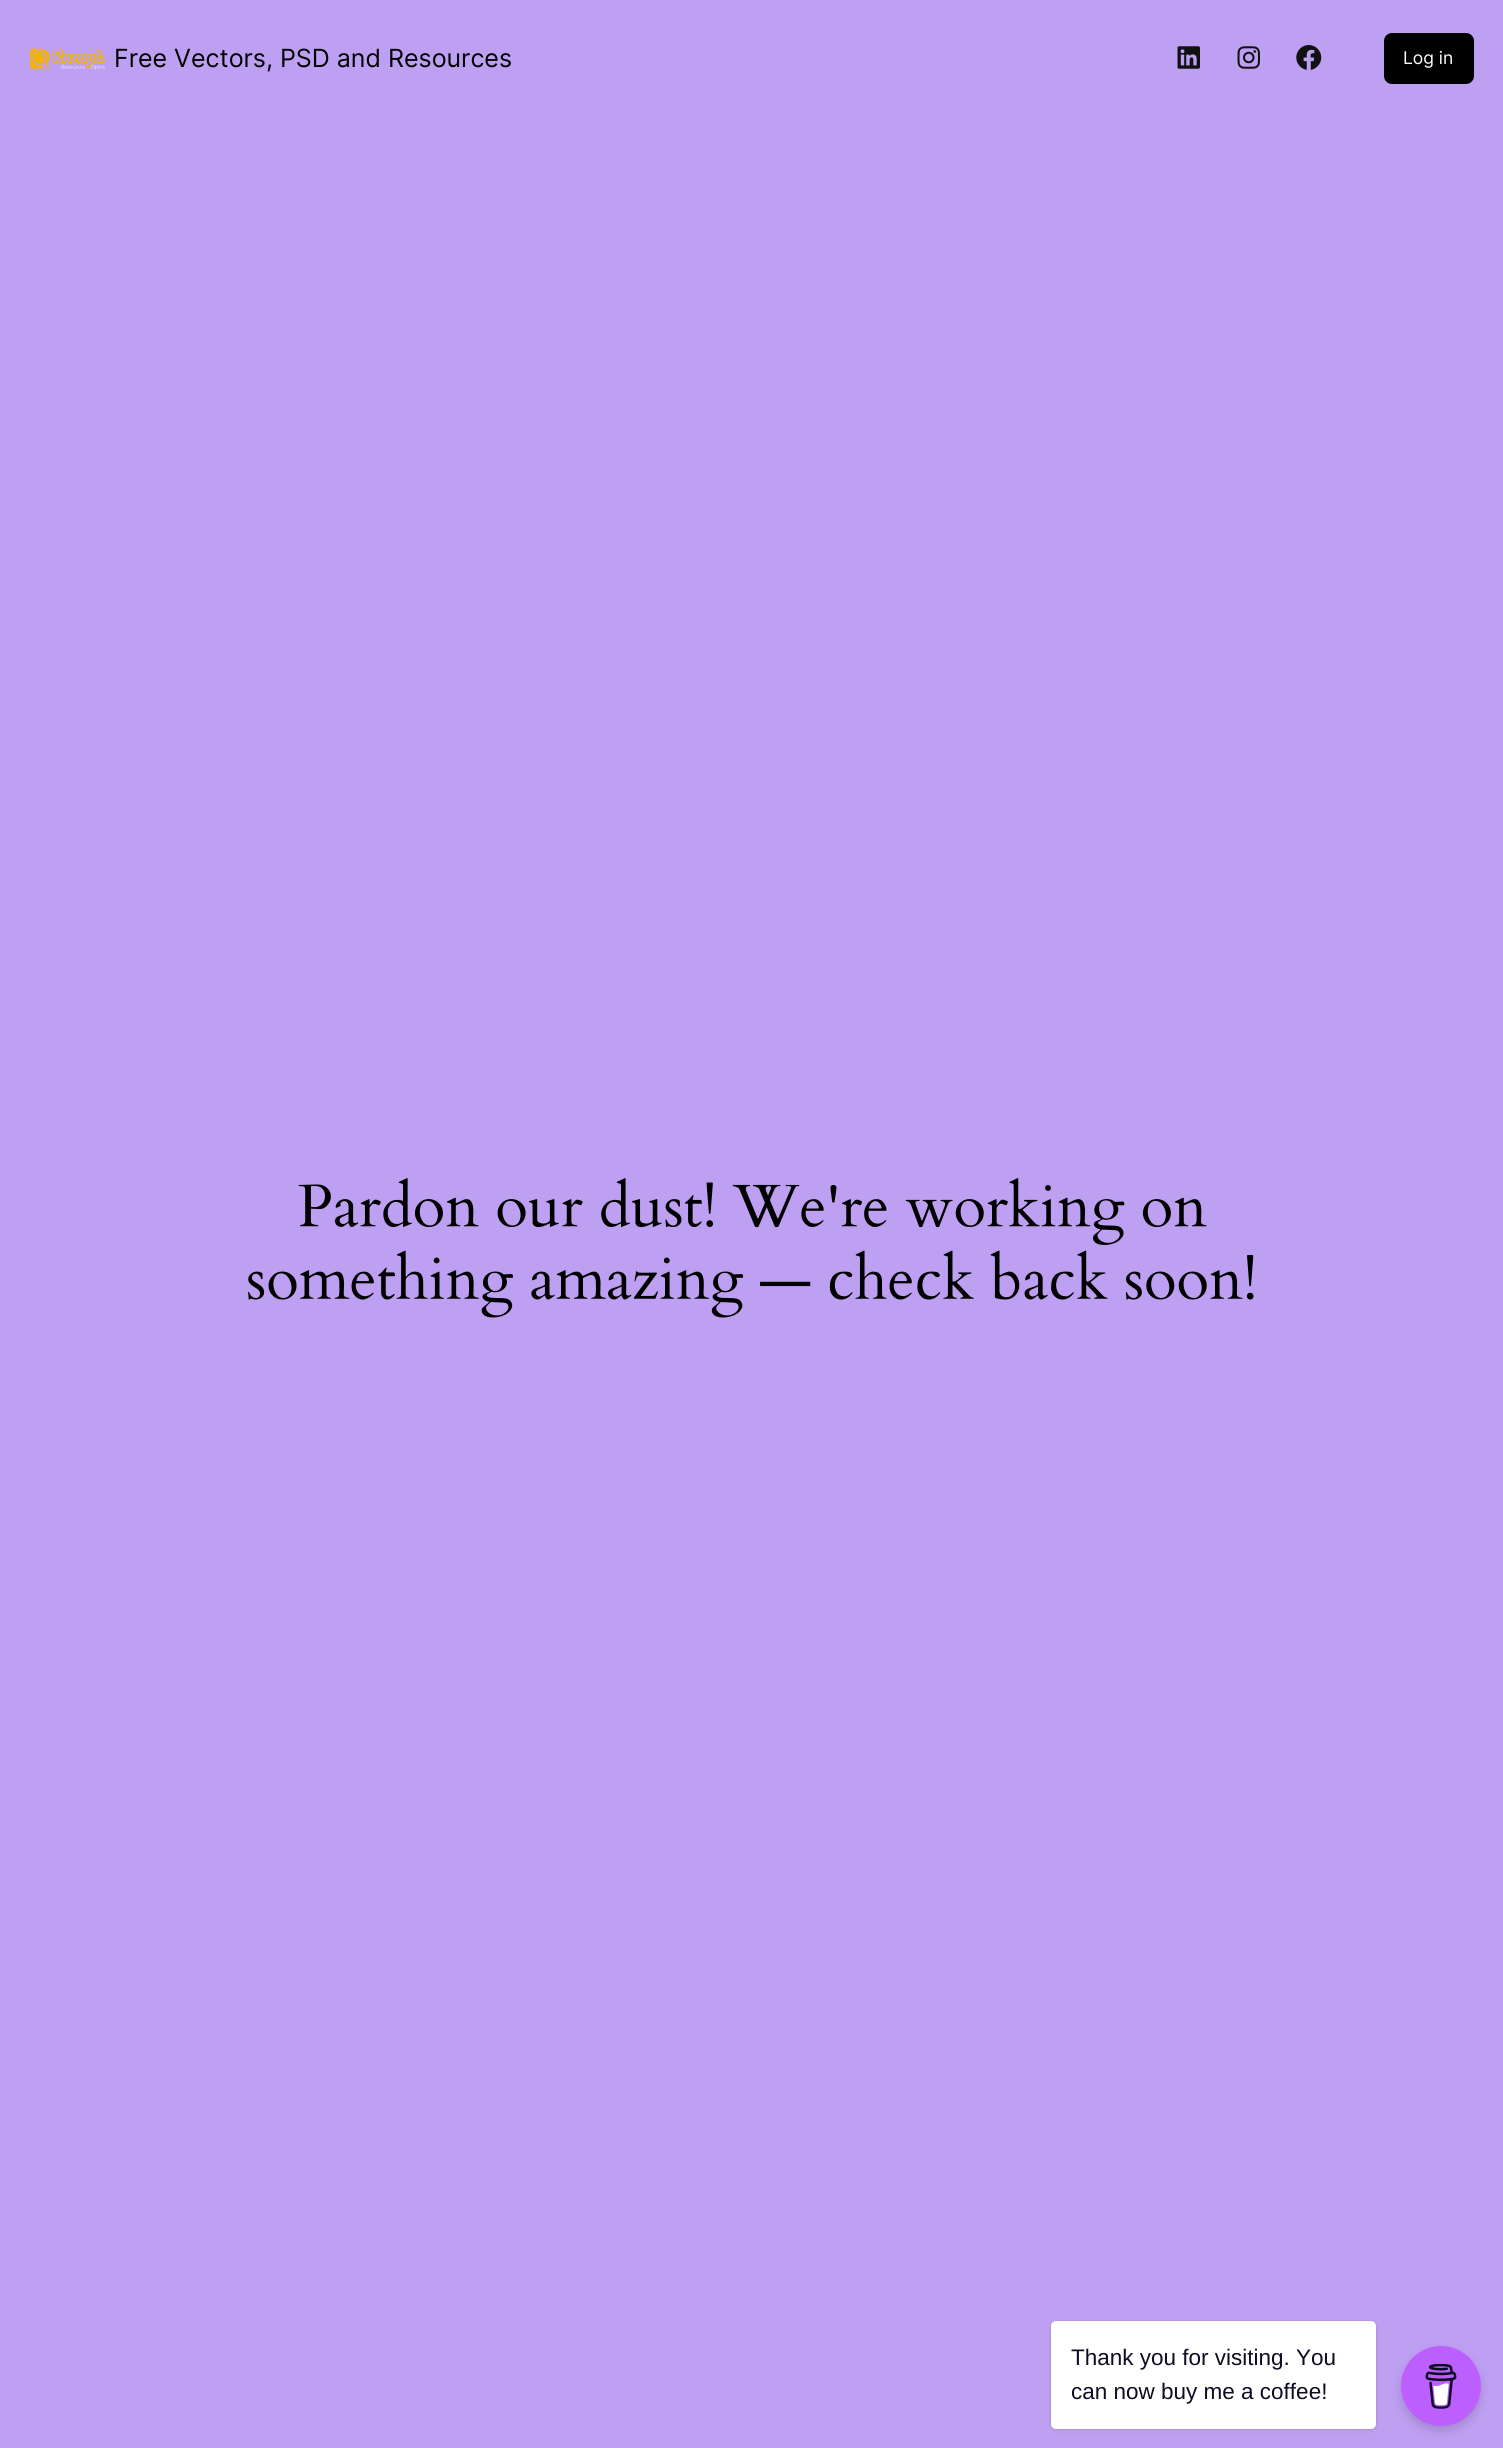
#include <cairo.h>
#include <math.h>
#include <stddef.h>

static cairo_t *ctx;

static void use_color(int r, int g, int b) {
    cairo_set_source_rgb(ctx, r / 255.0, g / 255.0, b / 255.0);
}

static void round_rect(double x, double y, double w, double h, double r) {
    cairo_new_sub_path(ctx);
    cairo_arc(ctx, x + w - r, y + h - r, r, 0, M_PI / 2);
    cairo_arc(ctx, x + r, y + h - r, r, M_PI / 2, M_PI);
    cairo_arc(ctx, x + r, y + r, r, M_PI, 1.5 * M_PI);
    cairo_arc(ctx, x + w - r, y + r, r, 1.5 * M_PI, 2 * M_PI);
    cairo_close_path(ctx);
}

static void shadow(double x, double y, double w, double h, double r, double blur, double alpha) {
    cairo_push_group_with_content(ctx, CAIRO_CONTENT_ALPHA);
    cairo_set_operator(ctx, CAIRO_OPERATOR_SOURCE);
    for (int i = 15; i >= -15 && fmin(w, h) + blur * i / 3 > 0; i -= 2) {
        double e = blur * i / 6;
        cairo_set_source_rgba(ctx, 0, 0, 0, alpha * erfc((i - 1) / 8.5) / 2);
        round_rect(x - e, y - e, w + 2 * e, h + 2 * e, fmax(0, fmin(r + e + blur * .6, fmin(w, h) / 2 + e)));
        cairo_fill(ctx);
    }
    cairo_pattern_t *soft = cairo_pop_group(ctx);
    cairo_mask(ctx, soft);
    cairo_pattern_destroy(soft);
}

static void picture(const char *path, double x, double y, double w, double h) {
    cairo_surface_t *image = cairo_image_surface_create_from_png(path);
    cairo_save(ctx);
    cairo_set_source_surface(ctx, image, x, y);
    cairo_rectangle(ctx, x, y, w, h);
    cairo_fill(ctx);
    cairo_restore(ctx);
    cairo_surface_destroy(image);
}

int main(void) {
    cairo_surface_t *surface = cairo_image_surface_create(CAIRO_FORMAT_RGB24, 1503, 2448);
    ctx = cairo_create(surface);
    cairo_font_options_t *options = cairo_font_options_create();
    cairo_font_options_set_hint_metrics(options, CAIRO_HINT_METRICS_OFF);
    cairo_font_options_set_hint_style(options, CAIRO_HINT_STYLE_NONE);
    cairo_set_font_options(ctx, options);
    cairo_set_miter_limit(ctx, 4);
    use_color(190, 160, 242);
    cairo_paint(ctx);
    picture("img1.png", 30, 48, 75, 22);
    cairo_select_font_face(ctx, "Inter", CAIRO_FONT_SLANT_NORMAL, CAIRO_FONT_WEIGHT_NORMAL);
    cairo_set_font_size(ctx, 25);
    use_color(0, 0, 0);
    cairo_move_to(ctx, 114, 67);
    cairo_show_text(ctx, "Free Vectors, PSD and Resources");
    picture("img2.png", 1177, 46, 23, 23);
    picture("img3.png", 1237, 46, 23, 23);
    picture("img4.png", 1296, 45, 26, 25);
    round_rect(1384, 33, 90, 51, 8);
    cairo_fill(ctx);
    cairo_set_font_size(ctx, 17.5);
    use_color(255, 255, 255);
    cairo_move_to(ctx, 1403, 64);
    cairo_show_text(ctx, "Log in");
    picture("img5.png", 298, 1178, 909, 67);
    picture("img6.png", 248, 1250, 1006, 68);
    use_color(0, 0, 0);
    shadow(1051, 2321, 325, 108, 5, 1, 0.15);
    shadow(1051, 2324, 325, 107, 5, 3, 0.05);
    use_color(255, 255, 255);
    round_rect(1051, 2321, 325, 108, 5);
    cairo_fill(ctx);
    cairo_select_font_face(ctx, "Liberation Sans", CAIRO_FONT_SLANT_NORMAL, CAIRO_FONT_WEIGHT_NORMAL);
    cairo_set_font_size(ctx, 22.5);
    use_color(13, 12, 34);
    cairo_move_to(ctx, 1071, 2365);
    cairo_show_text(ctx, "Thank you for visiting. You");
    cairo_move_to(ctx, 1071, 2399);
    cairo_show_text(ctx, "can now buy me a coffee!");
    use_color(0, 0, 0);
    shadow(1401, 2351, 80, 80, 40, 5, 0.15);
    use_color(189, 95, 255);
    cairo_arc(ctx, 1441, 2386, 40, 0, 2 * M_PI);
    cairo_fill(ctx);
    picture("img7.png", 1425, 2364, 32, 45);
    cairo_surface_write_to_png(surface, "result.png");
    cairo_font_options_destroy(options);
    cairo_destroy(ctx);
    cairo_surface_destroy(surface);
    return 0;
}
